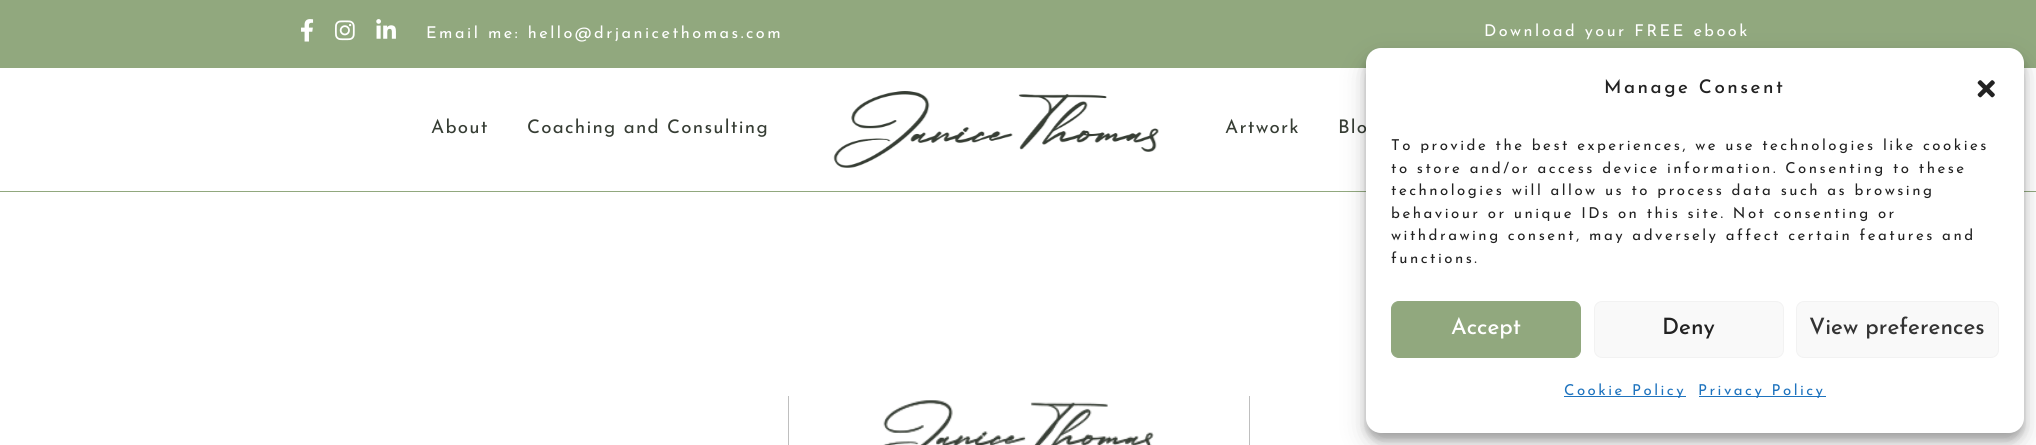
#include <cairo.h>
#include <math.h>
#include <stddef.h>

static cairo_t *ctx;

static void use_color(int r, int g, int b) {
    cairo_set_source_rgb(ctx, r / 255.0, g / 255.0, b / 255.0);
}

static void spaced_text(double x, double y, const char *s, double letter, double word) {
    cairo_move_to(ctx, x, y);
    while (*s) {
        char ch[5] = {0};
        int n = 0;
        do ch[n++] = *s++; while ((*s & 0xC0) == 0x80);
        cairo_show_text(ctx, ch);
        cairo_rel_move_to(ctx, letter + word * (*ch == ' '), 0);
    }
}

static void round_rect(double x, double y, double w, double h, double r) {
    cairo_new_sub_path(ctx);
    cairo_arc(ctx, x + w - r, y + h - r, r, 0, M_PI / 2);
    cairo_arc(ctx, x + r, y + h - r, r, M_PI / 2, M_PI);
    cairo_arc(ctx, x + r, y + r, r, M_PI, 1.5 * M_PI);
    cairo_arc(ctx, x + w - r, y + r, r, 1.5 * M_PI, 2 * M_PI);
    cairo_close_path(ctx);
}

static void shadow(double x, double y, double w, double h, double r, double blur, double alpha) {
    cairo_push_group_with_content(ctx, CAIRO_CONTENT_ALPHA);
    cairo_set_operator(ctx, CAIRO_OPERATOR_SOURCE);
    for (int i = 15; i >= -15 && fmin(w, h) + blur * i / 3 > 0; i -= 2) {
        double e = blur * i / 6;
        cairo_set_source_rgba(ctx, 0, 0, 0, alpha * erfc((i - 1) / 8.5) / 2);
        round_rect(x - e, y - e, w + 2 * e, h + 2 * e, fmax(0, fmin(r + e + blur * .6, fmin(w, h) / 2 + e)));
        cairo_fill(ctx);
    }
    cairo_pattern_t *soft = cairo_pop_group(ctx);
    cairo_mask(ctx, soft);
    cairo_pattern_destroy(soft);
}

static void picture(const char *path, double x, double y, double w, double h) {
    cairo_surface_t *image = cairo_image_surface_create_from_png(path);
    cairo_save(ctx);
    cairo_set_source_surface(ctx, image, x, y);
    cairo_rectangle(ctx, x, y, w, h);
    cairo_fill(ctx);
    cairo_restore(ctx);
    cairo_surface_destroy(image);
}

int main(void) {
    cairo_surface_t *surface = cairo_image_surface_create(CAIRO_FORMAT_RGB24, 2036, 445);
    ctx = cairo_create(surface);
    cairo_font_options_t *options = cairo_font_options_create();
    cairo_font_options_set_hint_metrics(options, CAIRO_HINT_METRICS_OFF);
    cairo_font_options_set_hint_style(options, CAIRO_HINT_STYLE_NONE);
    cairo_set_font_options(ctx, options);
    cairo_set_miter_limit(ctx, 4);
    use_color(255, 255, 255);
    cairo_paint(ctx);
    use_color(145, 168, 126);
    cairo_rectangle(ctx, 0, 0, 2036, 68);
    cairo_fill(ctx);
    picture("img1.png", 301, 19, 13, 23);
    picture("img2.png", 335, 20, 20, 21);
    picture("img3.png", 376, 19, 20, 20);
    cairo_select_font_face(ctx, "Josefin Sans", CAIRO_FONT_SLANT_NORMAL, CAIRO_FONT_WEIGHT_NORMAL);
    cairo_set_font_size(ctx, 16.25);
    use_color(255, 255, 255);
    spaced_text(426, 38, "Email me: hello@drjanicethomas.com", 2.5, 0);
    spaced_text(1484, 36, "Download your FREE ebook", 2.5, 0);
    use_color(145, 168, 126);
    cairo_rectangle(ctx, 0, 191, 2036, 1);
    cairo_fill(ctx);
    cairo_set_font_size(ctx, 18.75);
    use_color(54, 61, 52);
    spaced_text(431, 133, "About", 1.25, 0);
    spaced_text(527, 133, "Coaching and Consulting", 1.25, 0);
    picture("img4.png", 833, 91, 326, 77);
    spaced_text(1225, 133, "Artwork", 1.25, 0);
    spaced_text(1338, 133, "Blo", 1.25, 0);
    use_color(191, 191, 191);
    cairo_rectangle(ctx, 1249, 396, 1, 49);
    cairo_fill(ctx);
    cairo_rectangle(ctx, 788, 396, 1, 49);
    cairo_fill(ctx);
    picture("img5.png", 883, 400, 271, 45);
    use_color(0, 0, 0);
    shadow(1366, 55, 658, 385, 15, 4, 0.23);
    shadow(1366, 60, 658, 385, 15, 12.5, 0.19);
    use_color(255, 255, 255);
    round_rect(1366, 48, 658, 385, 15);
    cairo_fill(ctx);
    cairo_select_font_face(ctx, "Josefin Sans Medium", CAIRO_FONT_SLANT_NORMAL, CAIRO_FONT_WEIGHT_NORMAL);
    use_color(34, 34, 34);
    spaced_text(1604, 93, "Manage Consent", 2.5, 0);
    picture("img6.png", 1977, 80, 18, 18);
    cairo_select_font_face(ctx, "Josefin Sans", CAIRO_FONT_SLANT_NORMAL, CAIRO_FONT_WEIGHT_NORMAL);
    cairo_set_font_size(ctx, 15);
    spaced_text(1391, 150, "To provide the best experiences, we use technologies like cookies", 2.5, 0);
    spaced_text(1391, 173, "to store and/or access device information. Consenting to these", 2.5, 0);
    spaced_text(1391, 195, "technologies will allow us to process data such as browsing", 2.5, 0);
    spaced_text(1391, 218, "behaviour or unique IDs on this site. Not consenting or", 2.5, 0);
    spaced_text(1391, 240, "withdrawing consent, may adversely affect certain features and", 2.5, 0);
    spaced_text(1391, 263, "functions.", 2.5, 0);
    use_color(145, 168, 126);
    round_rect(1391.5, 301.5, 189, 56, 7.5);
    cairo_fill_preserve(ctx);
    cairo_set_line_width(ctx, 1);
    cairo_stroke(ctx);
    cairo_select_font_face(ctx, "Josefin Sans Medium", CAIRO_FONT_SLANT_NORMAL, CAIRO_FONT_WEIGHT_NORMAL);
    cairo_set_font_size(ctx, 22.5);
    use_color(255, 255, 255);
    cairo_move_to(ctx, 1451, 334);
    cairo_show_text(ctx, "Accept");
    use_color(249, 249, 249);
    round_rect(1594.5, 301.5, 189, 56, 7.5);
    cairo_fill_preserve(ctx);
    use_color(242, 242, 242);
    cairo_stroke(ctx);
    use_color(34, 34, 34);
    cairo_move_to(ctx, 1662, 334);
    cairo_show_text(ctx, "Deny");
    use_color(249, 249, 249);
    round_rect(1796.5, 301.5, 202, 56, 7.5);
    cairo_fill_preserve(ctx);
    use_color(242, 242, 242);
    cairo_stroke(ctx);
    use_color(51, 51, 51);
    cairo_move_to(ctx, 1809, 334);
    cairo_show_text(ctx, "View preferences");
    use_color(30, 115, 190);
    cairo_rectangle(ctx, 1564, 396, 122, 1);
    cairo_fill(ctx);
    cairo_select_font_face(ctx, "Josefin Sans", CAIRO_FONT_SLANT_NORMAL, CAIRO_FONT_WEIGHT_NORMAL);
    cairo_set_font_size(ctx, 15);
    spaced_text(1564, 395, "Cookie Policy", 2.5, 0);
    cairo_rectangle(ctx, 1699, 396, 127, 1);
    cairo_fill(ctx);
    spaced_text(1698, 395, "Privacy Policy", 2.5, 0);
    cairo_surface_write_to_png(surface, "result.png");
    cairo_font_options_destroy(options);
    cairo_destroy(ctx);
    cairo_surface_destroy(surface);
    return 0;
}
